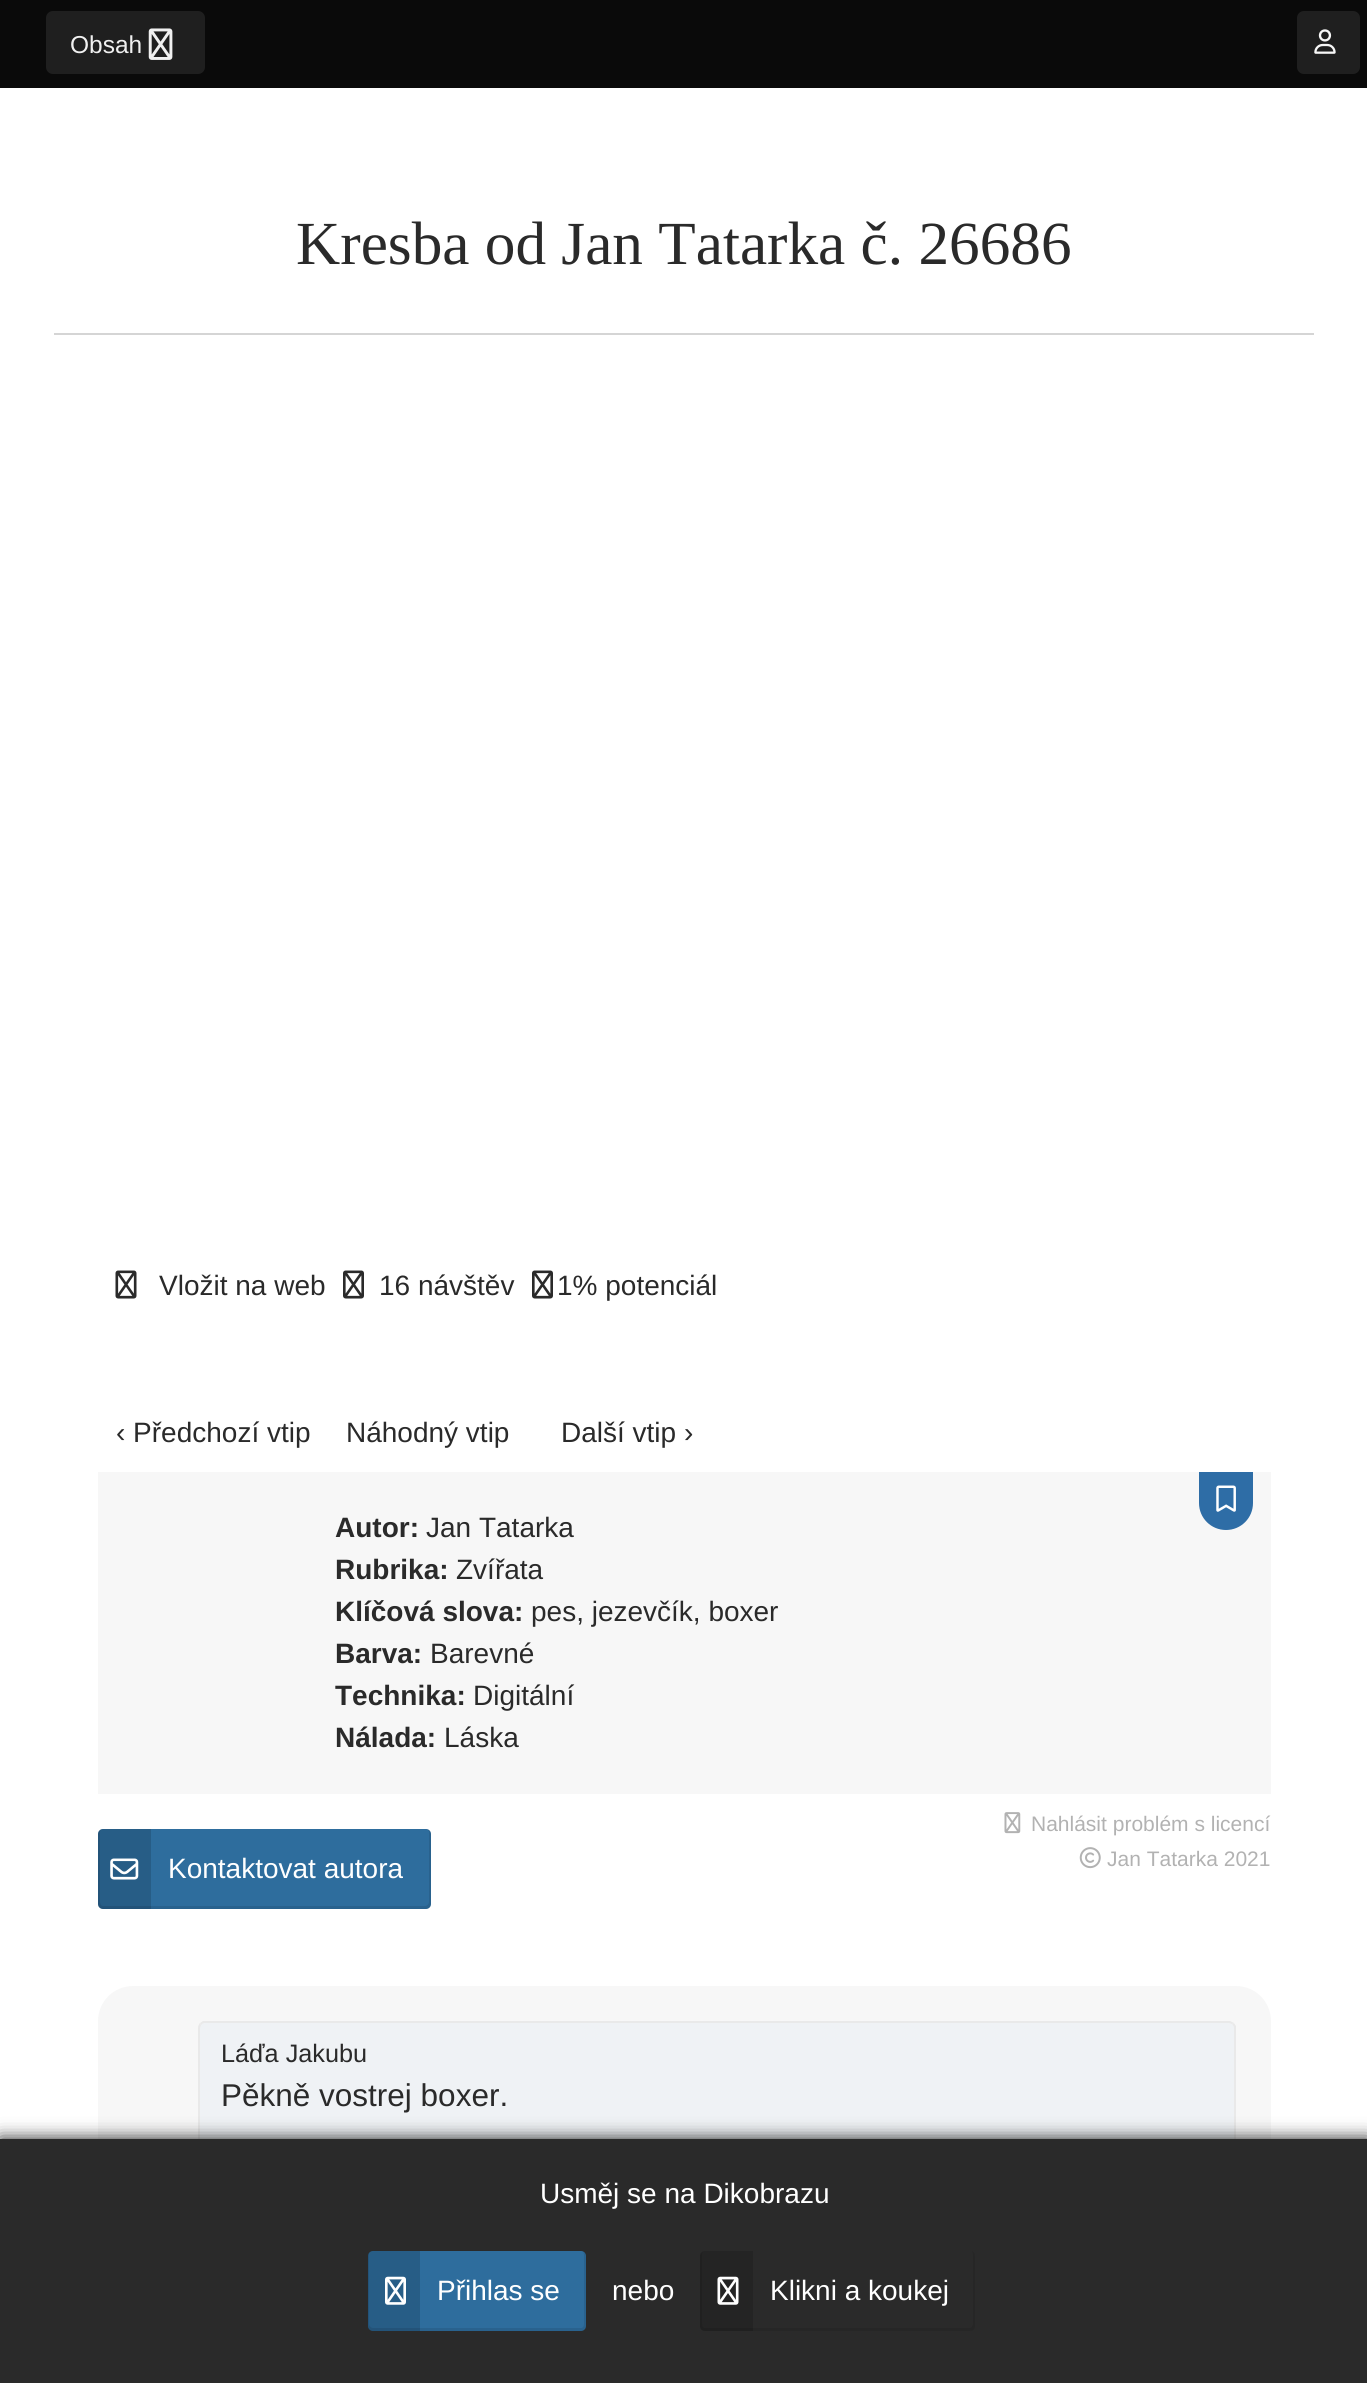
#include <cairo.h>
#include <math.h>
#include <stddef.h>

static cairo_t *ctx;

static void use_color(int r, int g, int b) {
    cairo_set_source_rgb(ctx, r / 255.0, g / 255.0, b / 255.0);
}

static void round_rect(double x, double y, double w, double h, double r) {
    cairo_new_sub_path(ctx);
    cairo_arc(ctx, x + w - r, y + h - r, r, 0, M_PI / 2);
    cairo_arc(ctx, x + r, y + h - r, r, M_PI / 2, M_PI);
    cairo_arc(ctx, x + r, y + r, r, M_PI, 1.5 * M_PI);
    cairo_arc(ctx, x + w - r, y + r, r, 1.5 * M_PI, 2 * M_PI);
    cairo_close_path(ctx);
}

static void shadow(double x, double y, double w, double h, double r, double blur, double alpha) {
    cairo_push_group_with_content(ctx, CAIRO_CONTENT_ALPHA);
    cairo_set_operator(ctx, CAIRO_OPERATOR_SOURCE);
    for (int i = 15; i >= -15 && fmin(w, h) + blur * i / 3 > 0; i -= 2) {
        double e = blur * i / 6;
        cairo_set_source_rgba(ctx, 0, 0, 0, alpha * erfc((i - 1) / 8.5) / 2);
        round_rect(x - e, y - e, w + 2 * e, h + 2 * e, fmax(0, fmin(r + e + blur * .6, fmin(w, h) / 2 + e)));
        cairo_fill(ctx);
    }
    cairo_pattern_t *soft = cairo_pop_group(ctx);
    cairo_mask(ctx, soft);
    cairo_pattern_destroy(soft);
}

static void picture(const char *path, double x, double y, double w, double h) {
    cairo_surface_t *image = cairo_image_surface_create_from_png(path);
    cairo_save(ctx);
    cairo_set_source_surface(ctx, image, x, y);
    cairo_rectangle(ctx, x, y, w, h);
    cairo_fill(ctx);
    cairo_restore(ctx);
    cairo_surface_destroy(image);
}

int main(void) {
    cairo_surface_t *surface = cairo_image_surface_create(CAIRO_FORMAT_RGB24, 1367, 2383);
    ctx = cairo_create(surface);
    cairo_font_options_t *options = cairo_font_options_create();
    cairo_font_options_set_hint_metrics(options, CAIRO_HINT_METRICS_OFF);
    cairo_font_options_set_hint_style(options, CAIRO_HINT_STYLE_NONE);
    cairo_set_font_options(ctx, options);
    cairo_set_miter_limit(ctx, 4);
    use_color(255, 255, 255);
    cairo_paint(ctx);
    use_color(10, 10, 10);
    cairo_rectangle(ctx, 0, 0, 1367, 88);
    cairo_fill(ctx);
    use_color(31, 31, 31);
    round_rect(46, 11, 159, 63, 7);
    cairo_fill(ctx);
    cairo_select_font_face(ctx, "Liberation Sans", CAIRO_FONT_SLANT_NORMAL, CAIRO_FONT_WEIGHT_NORMAL);
    cairo_set_font_size(ctx, 24.5);
    use_color(240, 240, 240);
    cairo_move_to(ctx, 70, 53);
    cairo_show_text(ctx, "Obsah");
    picture("img1.png", 148, 28, 25, 32);
    use_color(31, 31, 31);
    round_rect(1297, 11, 63, 63, 7);
    cairo_fill(ctx);
    picture("img2.png", 1314, 29, 22, 25);
    cairo_select_font_face(ctx, "Liberation Serif", CAIRO_FONT_SLANT_NORMAL, CAIRO_FONT_WEIGHT_NORMAL);
    cairo_set_font_size(ctx, 61.25);
    use_color(42, 42, 42);
    cairo_move_to(ctx, 296, 264);
    cairo_show_text(ctx, "Kresba od Jan Tatarka č. 26686");
    use_color(213, 213, 213);
    cairo_rectangle(ctx, 54, 333, 1260, 2);
    cairo_fill(ctx);
    picture("img3.png", 115, 1270, 22, 29);
    cairo_select_font_face(ctx, "Liberation Sans", CAIRO_FONT_SLANT_NORMAL, CAIRO_FONT_WEIGHT_NORMAL);
    cairo_set_font_size(ctx, 28);
    use_color(42, 42, 42);
    cairo_move_to(ctx, 159, 1295);
    cairo_show_text(ctx, "Vložit na web");
    picture("img4.png", 343, 1270, 21, 29);
    cairo_move_to(ctx, 379, 1295);
    cairo_show_text(ctx, "16 návštěv");
    picture("img4.png", 532, 1270, 21, 29);
    cairo_move_to(ctx, 557, 1295);
    cairo_show_text(ctx, "1% potenciál");
    cairo_move_to(ctx, 116, 1442);
    cairo_show_text(ctx, "‹ Předchozí vtip");
    cairo_move_to(ctx, 346, 1442);
    cairo_show_text(ctx, "Náhodný vtip");
    cairo_move_to(ctx, 561, 1442);
    cairo_show_text(ctx, "Další vtip ›");
    use_color(247, 247, 247);
    cairo_rectangle(ctx, 98, 1472, 1173, 322);
    cairo_fill(ctx);
    use_color(46, 109, 166);
    cairo_new_path(ctx);
    cairo_move_to(ctx, 1199, 1472);
    cairo_line_to(ctx, 1253, 1472);
    cairo_line_to(ctx, 1253, 1503);
    cairo_curve_to(ctx, 1253, 1518, 1241, 1530, 1226, 1530);
    cairo_curve_to(ctx, 1211, 1530, 1199, 1518, 1199, 1503);
    cairo_close_path(ctx);
    cairo_fill(ctx);
    picture("img5.png", 1216, 1485, 20, 27);
    cairo_select_font_face(ctx, "Liberation Sans", CAIRO_FONT_SLANT_NORMAL, CAIRO_FONT_WEIGHT_BOLD);
    use_color(42, 42, 42);
    cairo_move_to(ctx, 335, 1537);
    cairo_show_text(ctx, "Autor:");
    cairo_select_font_face(ctx, "Liberation Sans", CAIRO_FONT_SLANT_NORMAL, CAIRO_FONT_WEIGHT_NORMAL);
    cairo_move_to(ctx, 426, 1537);
    cairo_show_text(ctx, "Jan Tatarka");
    cairo_select_font_face(ctx, "Liberation Sans", CAIRO_FONT_SLANT_NORMAL, CAIRO_FONT_WEIGHT_BOLD);
    cairo_move_to(ctx, 335, 1579);
    cairo_show_text(ctx, "Rubrika:");
    cairo_select_font_face(ctx, "Liberation Sans", CAIRO_FONT_SLANT_NORMAL, CAIRO_FONT_WEIGHT_NORMAL);
    cairo_move_to(ctx, 456, 1579);
    cairo_show_text(ctx, "Zvířata");
    cairo_select_font_face(ctx, "Liberation Sans", CAIRO_FONT_SLANT_NORMAL, CAIRO_FONT_WEIGHT_BOLD);
    cairo_move_to(ctx, 335, 1621);
    cairo_show_text(ctx, "Klíčová slova:");
    cairo_select_font_face(ctx, "Liberation Sans", CAIRO_FONT_SLANT_NORMAL, CAIRO_FONT_WEIGHT_NORMAL);
    cairo_move_to(ctx, 531, 1621);
    cairo_show_text(ctx, "pes, jezevčík, boxer");
    cairo_select_font_face(ctx, "Liberation Sans", CAIRO_FONT_SLANT_NORMAL, CAIRO_FONT_WEIGHT_BOLD);
    cairo_move_to(ctx, 335, 1663);
    cairo_show_text(ctx, "Barva:");
    cairo_select_font_face(ctx, "Liberation Sans", CAIRO_FONT_SLANT_NORMAL, CAIRO_FONT_WEIGHT_NORMAL);
    cairo_move_to(ctx, 430, 1663);
    cairo_show_text(ctx, "Barevné");
    cairo_select_font_face(ctx, "Liberation Sans", CAIRO_FONT_SLANT_NORMAL, CAIRO_FONT_WEIGHT_BOLD);
    cairo_move_to(ctx, 335, 1705);
    cairo_show_text(ctx, "Technika:");
    cairo_select_font_face(ctx, "Liberation Sans", CAIRO_FONT_SLANT_NORMAL, CAIRO_FONT_WEIGHT_NORMAL);
    cairo_move_to(ctx, 473, 1705);
    cairo_show_text(ctx, "Digitální");
    cairo_select_font_face(ctx, "Liberation Sans", CAIRO_FONT_SLANT_NORMAL, CAIRO_FONT_WEIGHT_BOLD);
    cairo_move_to(ctx, 335, 1747);
    cairo_show_text(ctx, "Nálada:");
    cairo_select_font_face(ctx, "Liberation Sans", CAIRO_FONT_SLANT_NORMAL, CAIRO_FONT_WEIGHT_NORMAL);
    cairo_move_to(ctx, 444, 1747);
    cairo_show_text(ctx, "Láska");
    use_color(46, 109, 157);
    round_rect(98, 1829, 333, 80, 5);
    cairo_fill(ctx);
    cairo_set_source_rgba(ctx, 0, 0, 0, 0.1);
    cairo_new_path(ctx);
    cairo_move_to(ctx, 426, 1829);
    cairo_line_to(ctx, 425, 1829);
    cairo_curve_to(ctx, 427, 1829, 429, 1830, 429, 1832);
    cairo_line_to(ctx, 429, 1902);
    cairo_curve_to(ctx, 429, 1904, 427, 1906, 425, 1906);
    cairo_line_to(ctx, 103, 1906);
    cairo_curve_to(ctx, 101, 1906, 100, 1904, 100, 1902);
    cairo_line_to(ctx, 100, 1832);
    cairo_curve_to(ctx, 100, 1830, 101, 1829, 102, 1829);
    cairo_curve_to(ctx, 100, 1830, 98, 1832, 98, 1834);
    cairo_line_to(ctx, 98, 1904);
    cairo_curve_to(ctx, 98, 1907, 100, 1909, 103, 1909);
    cairo_line_to(ctx, 426, 1909);
    cairo_curve_to(ctx, 429, 1909, 431, 1907, 431, 1904);
    cairo_line_to(ctx, 431, 1834);
    cairo_curve_to(ctx, 431, 1831, 429, 1829, 426, 1829);
    cairo_close_path(ctx);
    cairo_fill(ctx);
    cairo_set_source_rgba(ctx, 0, 0, 0, 0.15);
    cairo_new_path(ctx);
    cairo_move_to(ctx, 103, 1829);
    cairo_line_to(ctx, 151, 1829);
    cairo_line_to(ctx, 151, 1909);
    cairo_line_to(ctx, 103, 1909);
    cairo_curve_to(ctx, 100, 1909, 98, 1907, 98, 1904);
    cairo_line_to(ctx, 98, 1834);
    cairo_curve_to(ctx, 98, 1831, 100, 1829, 103, 1829);
    cairo_close_path(ctx);
    cairo_fill(ctx);
    picture("img6.png", 110, 1858, 29, 22);
    use_color(255, 255, 255);
    cairo_move_to(ctx, 168, 1878);
    cairo_show_text(ctx, "Kontaktovat autora");
    picture("img7.png", 1004, 1812, 17, 22);
    cairo_set_font_size(ctx, 21);
    use_color(178, 178, 178);
    cairo_move_to(ctx, 1031, 1831);
    cairo_show_text(ctx, "Nahlásit problém s licencí");
    picture("img8.png", 1079, 1847, 22, 22);
    cairo_move_to(ctx, 1107, 1866);
    cairo_show_text(ctx, "Jan Tatarka 2021");
    use_color(247, 247, 247);
    round_rect(98, 1986, 1173, 326, 35);
    cairo_fill(ctx);
    use_color(239, 242, 245);
    cairo_new_path(ctx);
    cairo_move_to(ctx, 205, 2023);
    cairo_line_to(ctx, 1228, 2023);
    cairo_curve_to(ctx, 1231, 2023, 1234, 2025, 1234, 2028);
    cairo_line_to(ctx, 1234, 2210);
    cairo_curve_to(ctx, 1234, 2212, 1231, 2214, 1228, 2214);
    cairo_line_to(ctx, 205, 2214);
    cairo_curve_to(ctx, 202, 2214, 200, 2212, 200, 2210);
    cairo_line_to(ctx, 200, 2028);
    cairo_curve_to(ctx, 200, 2025, 202, 2023, 205, 2023);
    cairo_close_path(ctx);
    cairo_fill(ctx);
    use_color(233, 233, 233);
    cairo_new_path(ctx);
    cairo_move_to(ctx, 205, 2023);
    cairo_curve_to(ctx, 203, 2023, 202, 2024, 201, 2025);
    cairo_line_to(ctx, 200, 2023);
    cairo_line_to(ctx, 203, 2021);
    cairo_line_to(ctx, 1230, 2021);
    cairo_line_to(ctx, 1234, 2023);
    cairo_line_to(ctx, 1232, 2024);
    cairo_curve_to(ctx, 1231, 2024, 1230, 2023, 1228, 2023);
    cairo_close_path(ctx);
    cairo_fill(ctx);
    cairo_new_path(ctx);
    cairo_move_to(ctx, 1236, 2212);
    cairo_line_to(ctx, 1234, 2214);
    cairo_line_to(ctx, 1233, 2212);
    cairo_line_to(ctx, 1234, 2210);
    cairo_line_to(ctx, 1234, 2028);
    cairo_curve_to(ctx, 1234, 2027, 1233, 2025, 1232, 2024);
    cairo_line_to(ctx, 1234, 2023);
    cairo_line_to(ctx, 1236, 2026);
    cairo_close_path(ctx);
    cairo_fill(ctx);
    cairo_new_path(ctx);
    cairo_move_to(ctx, 199, 2214);
    cairo_curve_to(ctx, 198, 2213, 198, 2212, 198, 2210);
    cairo_line_to(ctx, 198, 2028);
    cairo_curve_to(ctx, 198, 2026, 199, 2024, 200, 2023);
    cairo_line_to(ctx, 201, 2025);
    cairo_line_to(ctx, 200, 2028);
    cairo_line_to(ctx, 200, 2210);
    cairo_line_to(ctx, 201, 2212);
    cairo_close_path(ctx);
    cairo_fill(ctx);
    cairo_set_font_size(ctx, 25.25);
    use_color(42, 42, 42);
    cairo_move_to(ctx, 221, 2062);
    cairo_show_text(ctx, "Láďa Jakubu");
    cairo_set_font_size(ctx, 31.5);
    cairo_move_to(ctx, 221, 2106);
    cairo_show_text(ctx, "Pěkně vostrej boxer.");
    use_color(31, 31, 31);
    shadow(0, 2139, 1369, 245, 0, 9, 1);
    use_color(42, 42, 42);
    cairo_rectangle(ctx, 0, 2139, 1367, 244);
    cairo_fill(ctx);
    cairo_set_font_size(ctx, 28);
    use_color(255, 255, 255);
    cairo_move_to(ctx, 540, 2203);
    cairo_show_text(ctx, "Usměj se na Dikobrazu");
    use_color(46, 109, 157);
    round_rect(368, 2251, 218, 80, 5);
    cairo_fill(ctx);
    cairo_set_source_rgba(ctx, 0, 0, 0, 0.1);
    cairo_new_path(ctx);
    cairo_move_to(ctx, 369, 2253);
    cairo_curve_to(ctx, 368, 2254, 368, 2255, 368, 2256);
    cairo_line_to(ctx, 368, 2326);
    cairo_curve_to(ctx, 368, 2329, 370, 2331, 373, 2331);
    cairo_line_to(ctx, 581, 2331);
    cairo_curve_to(ctx, 584, 2331, 586, 2329, 586, 2326);
    cairo_line_to(ctx, 586, 2256);
    cairo_curve_to(ctx, 586, 2254, 585, 2253, 583, 2252);
    cairo_line_to(ctx, 584, 2254);
    cairo_line_to(ctx, 584, 2324);
    cairo_curve_to(ctx, 584, 2326, 583, 2328, 581, 2328);
    cairo_line_to(ctx, 373, 2328);
    cairo_curve_to(ctx, 371, 2328, 369, 2326, 369, 2324);
    cairo_close_path(ctx);
    cairo_fill(ctx);
    cairo_set_source_rgba(ctx, 0, 0, 0, 0.15);
    cairo_new_path(ctx);
    cairo_move_to(ctx, 373, 2251);
    cairo_line_to(ctx, 420, 2251);
    cairo_line_to(ctx, 420, 2331);
    cairo_line_to(ctx, 373, 2331);
    cairo_curve_to(ctx, 370, 2331, 368, 2329, 368, 2326);
    cairo_line_to(ctx, 368, 2256);
    cairo_curve_to(ctx, 368, 2253, 370, 2251, 373, 2251);
    cairo_close_path(ctx);
    cairo_fill(ctx);
    picture("img9.png", 385, 2276, 21, 29);
    use_color(255, 255, 255);
    cairo_move_to(ctx, 437, 2300);
    cairo_show_text(ctx, "Přihlas se");
    cairo_move_to(ctx, 612, 2300);
    cairo_show_text(ctx, "nebo");
    use_color(38, 38, 38);
    cairo_new_path(ctx);
    cairo_move_to(ctx, 703, 2252);
    cairo_curve_to(ctx, 701, 2253, 700, 2254, 700, 2256);
    cairo_line_to(ctx, 700, 2326);
    cairo_curve_to(ctx, 700, 2329, 702, 2331, 705, 2331);
    cairo_line_to(ctx, 970, 2331);
    cairo_curve_to(ctx, 973, 2331, 975, 2329, 975, 2326);
    cairo_line_to(ctx, 975, 2256);
    cairo_curve_to(ctx, 975, 2254, 974, 2252, 972, 2251);
    cairo_line_to(ctx, 973, 2254);
    cairo_line_to(ctx, 973, 2324);
    cairo_curve_to(ctx, 973, 2326, 971, 2328, 970, 2328);
    cairo_line_to(ctx, 705, 2328);
    cairo_curve_to(ctx, 703, 2328, 702, 2326, 702, 2324);
    cairo_line_to(ctx, 702, 2254);
    cairo_close_path(ctx);
    cairo_fill(ctx);
    cairo_set_source_rgba(ctx, 0, 0, 0, 0.15);
    cairo_new_path(ctx);
    cairo_move_to(ctx, 705, 2251);
    cairo_line_to(ctx, 753, 2251);
    cairo_line_to(ctx, 753, 2331);
    cairo_line_to(ctx, 705, 2331);
    cairo_curve_to(ctx, 702, 2331, 700, 2329, 700, 2326);
    cairo_line_to(ctx, 700, 2256);
    cairo_curve_to(ctx, 700, 2253, 702, 2251, 705, 2251);
    cairo_close_path(ctx);
    cairo_fill(ctx);
    picture("img10.png", 717, 2276, 22, 29);
    use_color(255, 255, 255);
    cairo_move_to(ctx, 770, 2300);
    cairo_show_text(ctx, "Klikni a koukej");
    cairo_surface_write_to_png(surface, "result.png");
    cairo_font_options_destroy(options);
    cairo_destroy(ctx);
    cairo_surface_destroy(surface);
    return 0;
}
